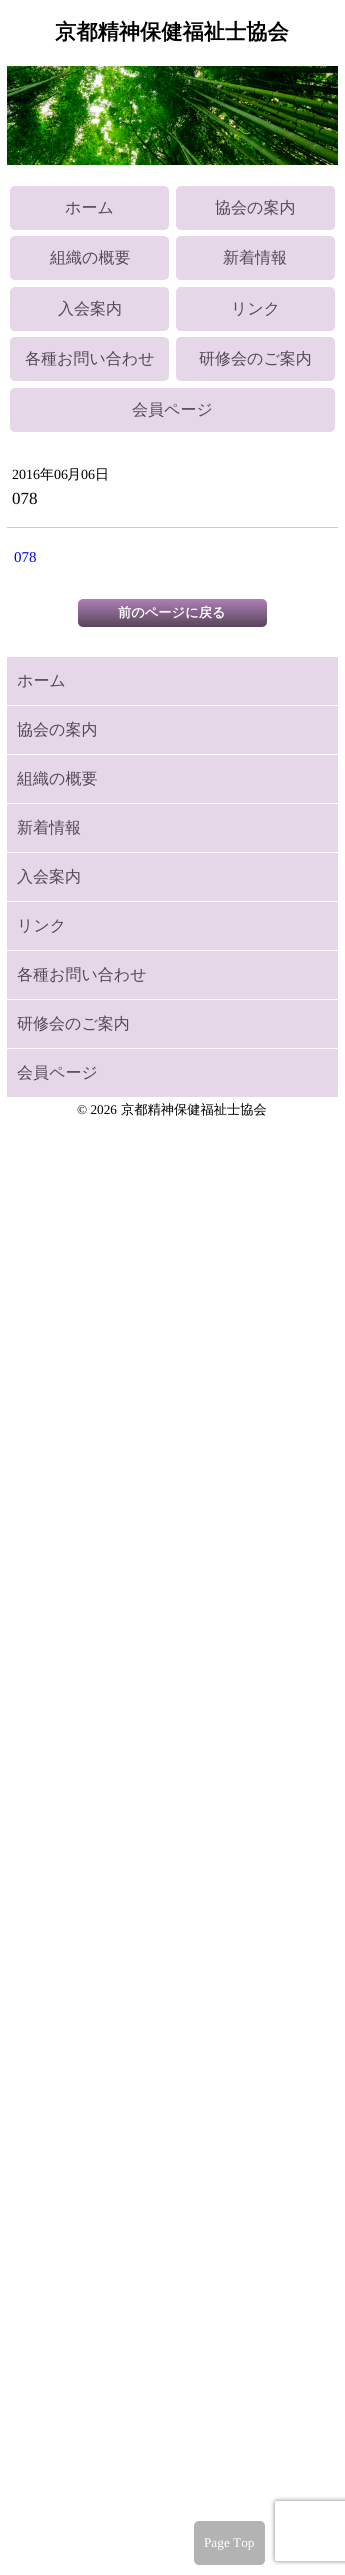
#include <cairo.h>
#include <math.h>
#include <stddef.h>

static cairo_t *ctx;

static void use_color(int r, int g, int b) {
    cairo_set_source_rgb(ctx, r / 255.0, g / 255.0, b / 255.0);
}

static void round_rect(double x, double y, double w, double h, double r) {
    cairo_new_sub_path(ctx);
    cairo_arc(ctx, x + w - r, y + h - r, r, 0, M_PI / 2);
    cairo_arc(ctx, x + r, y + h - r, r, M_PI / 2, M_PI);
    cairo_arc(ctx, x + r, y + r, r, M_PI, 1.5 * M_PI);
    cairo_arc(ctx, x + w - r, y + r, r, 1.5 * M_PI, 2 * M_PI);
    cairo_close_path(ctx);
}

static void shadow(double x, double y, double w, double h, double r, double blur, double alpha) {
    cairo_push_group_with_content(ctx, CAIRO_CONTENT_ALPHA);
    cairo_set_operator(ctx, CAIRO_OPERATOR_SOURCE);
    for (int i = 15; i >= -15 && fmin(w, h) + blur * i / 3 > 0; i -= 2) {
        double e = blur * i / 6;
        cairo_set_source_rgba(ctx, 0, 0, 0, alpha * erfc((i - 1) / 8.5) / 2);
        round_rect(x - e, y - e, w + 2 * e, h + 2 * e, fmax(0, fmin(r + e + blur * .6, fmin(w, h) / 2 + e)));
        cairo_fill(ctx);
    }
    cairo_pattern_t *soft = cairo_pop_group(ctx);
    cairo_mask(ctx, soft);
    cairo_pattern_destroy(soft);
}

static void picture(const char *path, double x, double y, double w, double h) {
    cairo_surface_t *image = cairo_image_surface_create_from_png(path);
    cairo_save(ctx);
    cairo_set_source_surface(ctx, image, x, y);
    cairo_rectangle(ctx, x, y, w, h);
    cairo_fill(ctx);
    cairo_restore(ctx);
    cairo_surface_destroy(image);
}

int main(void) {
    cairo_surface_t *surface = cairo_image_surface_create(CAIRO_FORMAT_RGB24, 345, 2575);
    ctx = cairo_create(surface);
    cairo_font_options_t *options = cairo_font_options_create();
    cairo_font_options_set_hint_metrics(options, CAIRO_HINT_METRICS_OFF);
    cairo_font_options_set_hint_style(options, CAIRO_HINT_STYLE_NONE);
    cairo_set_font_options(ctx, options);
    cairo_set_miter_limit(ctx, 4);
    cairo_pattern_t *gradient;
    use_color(255, 255, 255);
    cairo_paint(ctx);
    cairo_select_font_face(ctx, "WenQuanYi Zen Hei", CAIRO_FONT_SLANT_NORMAL, CAIRO_FONT_WEIGHT_BOLD);
    cairo_set_font_size(ctx, 21.25);
    use_color(0, 0, 0);
    cairo_move_to(ctx, 55, 39);
    cairo_show_text(ctx, "京都精神保健福祉士協会");
    picture("img1.png", 7, 66, 331, 99);
    use_color(229, 214, 232);
    round_rect(10, 186, 159, 44, 5);
    cairo_fill(ctx);
    cairo_select_font_face(ctx, "WenQuanYi Zen Hei Medium", CAIRO_FONT_SLANT_NORMAL, CAIRO_FONT_WEIGHT_NORMAL);
    cairo_set_font_size(ctx, 16);
    use_color(88, 69, 89);
    cairo_move_to(ctx, 65, 213);
    cairo_show_text(ctx, "ホーム");
    use_color(229, 214, 232);
    round_rect(176, 186, 159, 44, 5);
    cairo_fill(ctx);
    use_color(88, 69, 89);
    cairo_move_to(ctx, 215, 213);
    cairo_show_text(ctx, "協会の案内");
    use_color(229, 214, 232);
    round_rect(10, 236, 159, 44, 5);
    cairo_fill(ctx);
    use_color(88, 69, 89);
    cairo_move_to(ctx, 50, 263);
    cairo_show_text(ctx, "組織の概要");
    use_color(229, 214, 232);
    round_rect(176, 236, 159, 44, 5);
    cairo_fill(ctx);
    use_color(88, 69, 89);
    cairo_move_to(ctx, 223, 263);
    cairo_show_text(ctx, "新着情報");
    use_color(229, 214, 232);
    round_rect(10, 287, 159, 44, 5);
    cairo_fill(ctx);
    use_color(88, 69, 89);
    cairo_move_to(ctx, 58, 314);
    cairo_show_text(ctx, "入会案内");
    use_color(229, 214, 232);
    round_rect(176, 287, 159, 44, 5);
    cairo_fill(ctx);
    use_color(88, 69, 89);
    cairo_move_to(ctx, 231, 314);
    cairo_show_text(ctx, "リンク");
    use_color(229, 214, 232);
    round_rect(10, 337, 159, 44, 5);
    cairo_fill(ctx);
    use_color(88, 69, 89);
    cairo_move_to(ctx, 25, 364);
    cairo_show_text(ctx, "各種お問い合わせ");
    use_color(229, 214, 232);
    round_rect(176, 337, 159, 44, 5);
    cairo_fill(ctx);
    use_color(88, 69, 89);
    cairo_move_to(ctx, 199, 364);
    cairo_show_text(ctx, "研修会のご案内");
    use_color(229, 214, 232);
    round_rect(10, 388, 325, 44, 5);
    cairo_fill(ctx);
    use_color(88, 69, 89);
    cairo_move_to(ctx, 132, 415);
    cairo_show_text(ctx, "会員ページ");
    cairo_select_font_face(ctx, "Liberation Serif", CAIRO_FONT_SLANT_NORMAL, CAIRO_FONT_WEIGHT_NORMAL);
    cairo_set_font_size(ctx, 14);
    use_color(0, 0, 0);
    cairo_move_to(ctx, 12, 479);
    cairo_show_text(ctx, "2016");
    cairo_select_font_face(ctx, "WenQuanYi Zen Hei Medium", CAIRO_FONT_SLANT_NORMAL, CAIRO_FONT_WEIGHT_NORMAL);
    cairo_move_to(ctx, 40, 479);
    cairo_show_text(ctx, "年");
    cairo_select_font_face(ctx, "Liberation Serif", CAIRO_FONT_SLANT_NORMAL, CAIRO_FONT_WEIGHT_NORMAL);
    cairo_move_to(ctx, 54, 479);
    cairo_show_text(ctx, "06");
    cairo_select_font_face(ctx, "WenQuanYi Zen Hei Medium", CAIRO_FONT_SLANT_NORMAL, CAIRO_FONT_WEIGHT_NORMAL);
    cairo_move_to(ctx, 67, 479);
    cairo_show_text(ctx, "月");
    cairo_select_font_face(ctx, "Liberation Serif", CAIRO_FONT_SLANT_NORMAL, CAIRO_FONT_WEIGHT_NORMAL);
    cairo_move_to(ctx, 81, 479);
    cairo_show_text(ctx, "06");
    cairo_select_font_face(ctx, "WenQuanYi Zen Hei Medium", CAIRO_FONT_SLANT_NORMAL, CAIRO_FONT_WEIGHT_NORMAL);
    cairo_move_to(ctx, 95, 479);
    cairo_show_text(ctx, "日");
    cairo_select_font_face(ctx, "Liberation Serif", CAIRO_FONT_SLANT_NORMAL, CAIRO_FONT_WEIGHT_NORMAL);
    cairo_set_font_size(ctx, 17);
    cairo_move_to(ctx, 12, 504);
    cairo_show_text(ctx, "078");
    use_color(204, 204, 204);
    cairo_rectangle(ctx, 7, 527, 331, 1);
    cairo_fill(ctx);
    cairo_set_font_size(ctx, 15);
    use_color(0, 0, 238);
    cairo_move_to(ctx, 14, 562);
    cairo_show_text(ctx, "078");
    gradient = cairo_pattern_create_linear(173, 599, 173, 627);
    cairo_pattern_add_color_stop_rgba(gradient, 0, 0.69, 0.498, 0.722, 1);
    cairo_pattern_add_color_stop_rgba(gradient, 1, 0.345, 0.271, 0.349, 1);
    cairo_pattern_add_color_stop_rgba(gradient, 1, 0.549, 0.082, 0.016, 1);
    cairo_set_source(ctx, gradient);
    cairo_pattern_destroy(gradient);
    round_rect(78, 599, 189, 28, 5);
    cairo_fill(ctx);
    cairo_select_font_face(ctx, "WenQuanYi Zen Hei", CAIRO_FONT_SLANT_NORMAL, CAIRO_FONT_WEIGHT_BOLD);
    cairo_set_font_size(ctx, 13.25);
    use_color(255, 255, 255);
    cairo_move_to(ctx, 118, 617);
    cairo_show_text(ctx, "前のページに戻る");
    use_color(229, 214, 232);
    cairo_rectangle(ctx, 7, 657, 331, 48);
    cairo_fill(ctx);
    cairo_select_font_face(ctx, "WenQuanYi Zen Hei Medium", CAIRO_FONT_SLANT_NORMAL, CAIRO_FONT_WEIGHT_NORMAL);
    cairo_set_font_size(ctx, 16);
    use_color(88, 69, 89);
    cairo_move_to(ctx, 17, 686);
    cairo_show_text(ctx, "ホーム");
    use_color(229, 214, 232);
    cairo_rectangle(ctx, 7, 706, 331, 48);
    cairo_fill(ctx);
    use_color(88, 69, 89);
    cairo_move_to(ctx, 17, 735);
    cairo_show_text(ctx, "協会の案内");
    use_color(229, 214, 232);
    cairo_rectangle(ctx, 7, 755, 331, 48);
    cairo_fill(ctx);
    use_color(88, 69, 89);
    cairo_move_to(ctx, 17, 784);
    cairo_show_text(ctx, "組織の概要");
    use_color(229, 214, 232);
    cairo_rectangle(ctx, 7, 804, 331, 48);
    cairo_fill(ctx);
    use_color(88, 69, 89);
    cairo_move_to(ctx, 17, 833);
    cairo_show_text(ctx, "新着情報");
    use_color(229, 214, 232);
    cairo_rectangle(ctx, 7, 853, 331, 48);
    cairo_fill(ctx);
    use_color(88, 69, 89);
    cairo_move_to(ctx, 17, 882);
    cairo_show_text(ctx, "入会案内");
    use_color(229, 214, 232);
    cairo_rectangle(ctx, 7, 902, 331, 48);
    cairo_fill(ctx);
    use_color(88, 69, 89);
    cairo_move_to(ctx, 17, 931);
    cairo_show_text(ctx, "リンク");
    use_color(229, 214, 232);
    cairo_rectangle(ctx, 7, 951, 331, 48);
    cairo_fill(ctx);
    use_color(88, 69, 89);
    cairo_move_to(ctx, 17, 980);
    cairo_show_text(ctx, "各種お問い合わせ");
    use_color(229, 214, 232);
    cairo_rectangle(ctx, 7, 1000, 331, 48);
    cairo_fill(ctx);
    use_color(88, 69, 89);
    cairo_move_to(ctx, 17, 1029);
    cairo_show_text(ctx, "研修会のご案内");
    use_color(229, 214, 232);
    cairo_rectangle(ctx, 7, 1049, 331, 48);
    cairo_fill(ctx);
    use_color(88, 69, 89);
    cairo_move_to(ctx, 17, 1078);
    cairo_show_text(ctx, "会員ページ");
    cairo_select_font_face(ctx, "Liberation Serif", CAIRO_FONT_SLANT_NORMAL, CAIRO_FONT_WEIGHT_NORMAL);
    cairo_set_font_size(ctx, 13.25);
    use_color(0, 0, 0);
    cairo_move_to(ctx, 77, 1114);
    cairo_show_text(ctx, "© 2026");
    cairo_select_font_face(ctx, "WenQuanYi Zen Hei Medium", CAIRO_FONT_SLANT_NORMAL, CAIRO_FONT_WEIGHT_NORMAL);
    cairo_move_to(ctx, 121, 1114);
    cairo_show_text(ctx, "京都精神保健福祉士協会");
    use_color(179, 179, 179);
    round_rect(194, 2521, 71, 44, 5);
    cairo_fill(ctx);
    cairo_select_font_face(ctx, "Liberation Serif", CAIRO_FONT_SLANT_NORMAL, CAIRO_FONT_WEIGHT_NORMAL);
    use_color(255, 255, 255);
    cairo_move_to(ctx, 204, 2547);
    cairo_show_text(ctx, "Page Top");
    cairo_save(ctx);
    cairo_set_fill_rule(ctx, CAIRO_FILL_RULE_EVEN_ODD);
    cairo_new_path(ctx);
    cairo_move_to(ctx, 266, 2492);
    cairo_line_to(ctx, 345, 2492);
    cairo_line_to(ctx, 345, 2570);
    cairo_line_to(ctx, 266, 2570);
    cairo_close_path(ctx);
    cairo_move_to(ctx, 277, 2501);
    cairo_line_to(ctx, 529, 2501);
    cairo_curve_to(ctx, 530, 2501, 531, 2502, 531, 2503);
    cairo_line_to(ctx, 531, 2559);
    cairo_curve_to(ctx, 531, 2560, 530, 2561, 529, 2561);
    cairo_line_to(ctx, 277, 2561);
    cairo_curve_to(ctx, 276, 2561, 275, 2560, 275, 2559);
    cairo_line_to(ctx, 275, 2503);
    cairo_curve_to(ctx, 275, 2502, 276, 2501, 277, 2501);
    cairo_close_path(ctx);
    cairo_clip(ctx);
    use_color(128, 128, 128);
    shadow(275, 2501, 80, 60, 2, 2.5, 1);
    cairo_restore(ctx);
    cairo_surface_write_to_png(surface, "result.png");
    cairo_font_options_destroy(options);
    cairo_destroy(ctx);
    cairo_surface_destroy(surface);
    return 0;
}
